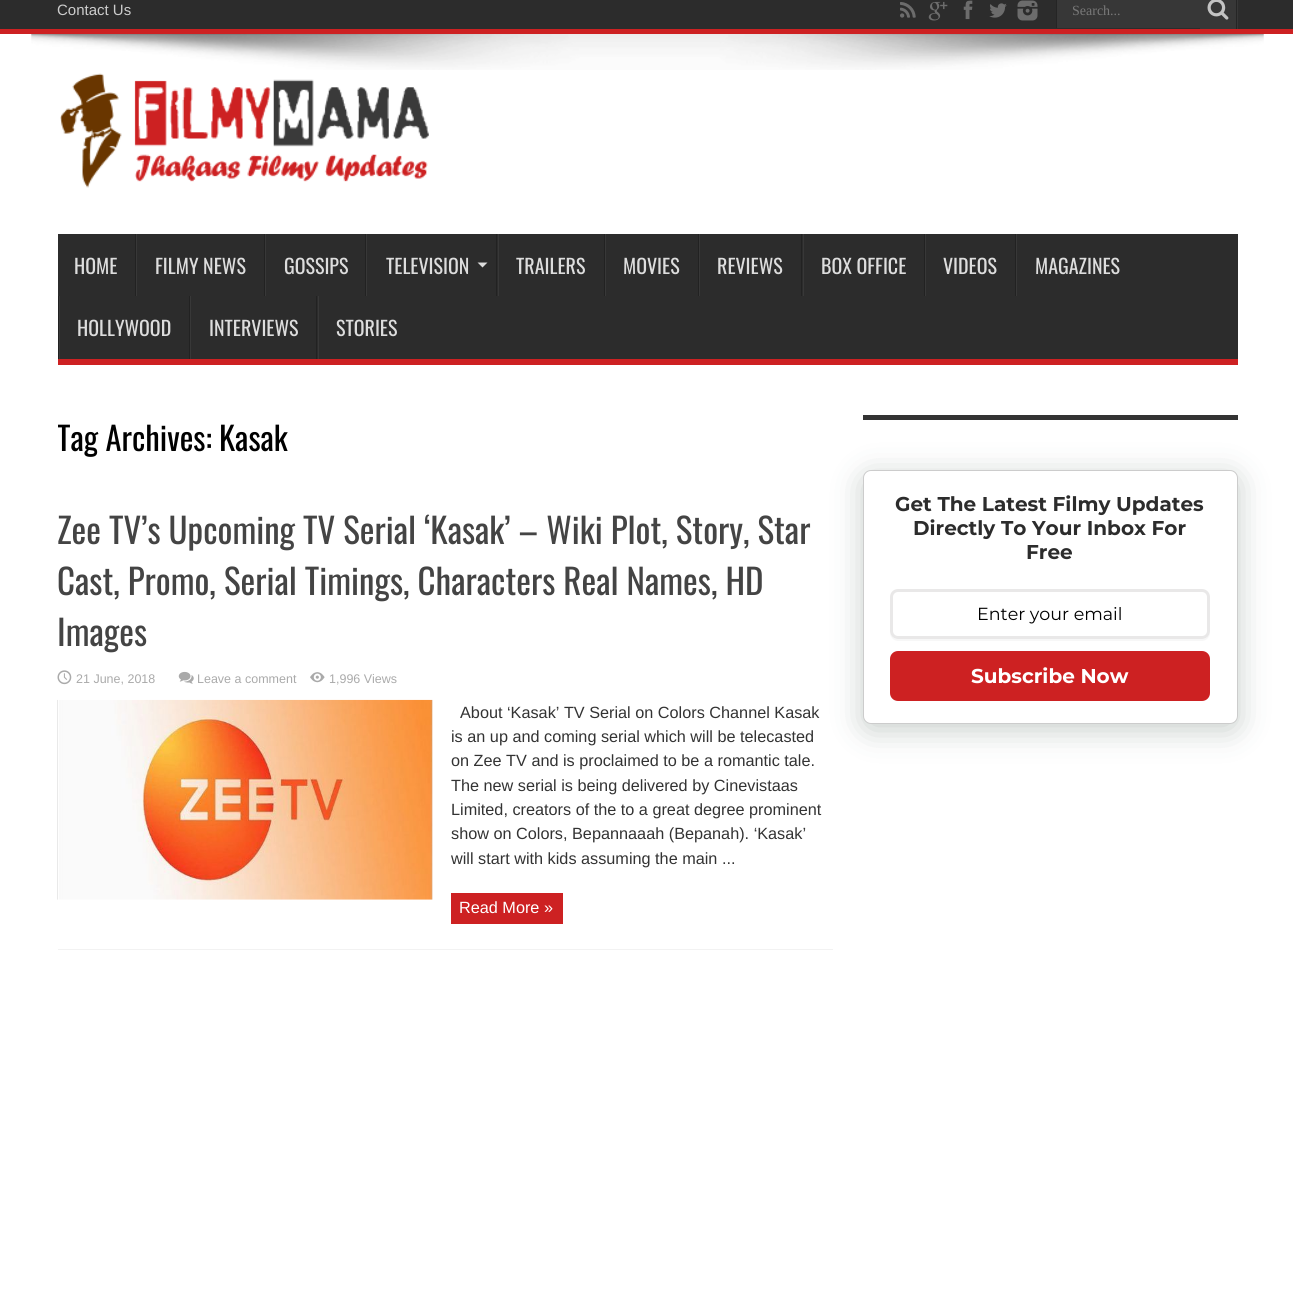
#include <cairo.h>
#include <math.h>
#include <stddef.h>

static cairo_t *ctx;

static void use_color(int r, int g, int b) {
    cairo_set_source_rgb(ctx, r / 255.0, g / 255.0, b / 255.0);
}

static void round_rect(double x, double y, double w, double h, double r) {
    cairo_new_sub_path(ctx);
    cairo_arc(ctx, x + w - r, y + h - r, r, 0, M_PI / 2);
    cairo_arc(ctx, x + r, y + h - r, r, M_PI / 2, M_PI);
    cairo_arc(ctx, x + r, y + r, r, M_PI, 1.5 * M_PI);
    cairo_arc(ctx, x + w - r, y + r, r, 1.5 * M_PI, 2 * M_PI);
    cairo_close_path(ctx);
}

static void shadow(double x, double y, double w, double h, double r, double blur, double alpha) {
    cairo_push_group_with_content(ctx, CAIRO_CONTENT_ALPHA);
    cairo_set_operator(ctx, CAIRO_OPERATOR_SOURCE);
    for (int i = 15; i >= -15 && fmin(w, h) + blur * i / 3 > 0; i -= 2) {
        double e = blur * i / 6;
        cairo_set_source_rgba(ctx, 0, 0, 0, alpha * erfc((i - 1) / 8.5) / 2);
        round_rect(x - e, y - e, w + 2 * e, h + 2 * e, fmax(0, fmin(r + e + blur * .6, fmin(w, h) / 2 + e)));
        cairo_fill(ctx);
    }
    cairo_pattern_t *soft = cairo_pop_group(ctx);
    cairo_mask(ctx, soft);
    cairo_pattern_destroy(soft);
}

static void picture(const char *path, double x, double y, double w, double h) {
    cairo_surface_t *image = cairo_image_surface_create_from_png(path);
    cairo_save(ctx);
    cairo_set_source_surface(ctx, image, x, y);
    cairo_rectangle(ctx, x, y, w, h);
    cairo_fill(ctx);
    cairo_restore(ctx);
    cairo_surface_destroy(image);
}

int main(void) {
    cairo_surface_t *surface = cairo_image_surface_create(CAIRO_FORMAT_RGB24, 1293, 1299);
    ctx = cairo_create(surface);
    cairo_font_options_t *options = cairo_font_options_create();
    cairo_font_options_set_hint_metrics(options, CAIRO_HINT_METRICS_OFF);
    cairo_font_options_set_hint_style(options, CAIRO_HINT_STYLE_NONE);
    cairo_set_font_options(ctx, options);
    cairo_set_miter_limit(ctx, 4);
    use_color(255, 255, 255);
    cairo_paint(ctx);
    use_color(44, 44, 44);
    cairo_rectangle(ctx, 0, 0, 1293, 29);
    cairo_fill(ctx);
    use_color(205, 33, 34);
    cairo_rectangle(ctx, 0, 29, 1293, 5);
    cairo_fill(ctx);
    cairo_select_font_face(ctx, "Liberation Sans", CAIRO_FONT_SLANT_NORMAL, CAIRO_FONT_WEIGHT_NORMAL);
    cairo_set_font_size(ctx, 15);
    use_color(204, 204, 204);
    cairo_move_to(ctx, 57, 15);
    cairo_show_text(ctx, "Contact Us");
    picture("img1.png", 900, 2, 16, 16);
    picture("img2.png", 928, 1, 20, 20);
    picture("img3.png", 963, 0, 10, 20);
    picture("img4.png", 989, 3, 18, 15);
    picture("img5.png", 1017, 0, 21, 21);
    use_color(55, 55, 55);
    cairo_rectangle(ctx, 1057, 0, 143, 28);
    cairo_fill(ctx);
    use_color(37, 37, 37);
    cairo_rectangle(ctx, 1056, 0, 1, 28);
    cairo_fill(ctx);
    cairo_save(ctx);
    cairo_rectangle(ctx, 1073, 3, 112, 15);
    cairo_clip(ctx);
    cairo_select_font_face(ctx, "Liberation Serif", CAIRO_FONT_SLANT_NORMAL, CAIRO_FONT_WEIGHT_NORMAL);
    cairo_set_font_size(ctx, 14);
    use_color(120, 120, 120);
    cairo_move_to(ctx, 1072, 15);
    cairo_show_text(ctx, "Search...");
    cairo_restore(ctx);
    use_color(55, 55, 55);
    cairo_rectangle(ctx, 1200, 0, 38, 29);
    cairo_fill(ctx);
    use_color(37, 37, 37);
    cairo_rectangle(ctx, 1236, 0, 1, 29);
    cairo_fill(ctx);
    picture("img6.png", 1207, 0, 22, 20);
    picture("img7.png", 31, 34, 1233, 36);
    picture("img8.png", 60, 73, 369, 115);
    use_color(44, 44, 44);
    cairo_rectangle(ctx, 58, 234, 1180, 125);
    cairo_fill(ctx);
    use_color(205, 33, 34);
    cairo_rectangle(ctx, 58, 359, 1180, 6);
    cairo_fill(ctx);
    cairo_select_font_face(ctx, "Oswald", CAIRO_FONT_SLANT_NORMAL, CAIRO_FONT_WEIGHT_NORMAL);
    cairo_set_font_size(ctx, 20);
    use_color(221, 221, 221);
    cairo_move_to(ctx, 74, 274);
    cairo_show_text(ctx, "HOME");
    use_color(34, 34, 34);
    cairo_rectangle(ctx, 135, 234, 1, 62);
    cairo_fill(ctx);
    use_color(56, 56, 56);
    cairo_rectangle(ctx, 136, 234, 1, 62);
    cairo_fill(ctx);
    use_color(221, 221, 221);
    cairo_move_to(ctx, 155, 274);
    cairo_show_text(ctx, "FILMY NEWS");
    use_color(34, 34, 34);
    cairo_rectangle(ctx, 264, 234, 1, 62);
    cairo_fill(ctx);
    use_color(56, 56, 56);
    cairo_rectangle(ctx, 265, 234, 1, 62);
    cairo_fill(ctx);
    use_color(221, 221, 221);
    cairo_move_to(ctx, 284, 274);
    cairo_show_text(ctx, "GOSSIPS");
    use_color(34, 34, 34);
    cairo_rectangle(ctx, 365, 234, 1, 62);
    cairo_fill(ctx);
    use_color(56, 56, 56);
    cairo_rectangle(ctx, 366, 234, 1, 62);
    cairo_fill(ctx);
    use_color(221, 221, 221);
    cairo_move_to(ctx, 386, 274);
    cairo_show_text(ctx, "TELEVISION");
    cairo_new_path(ctx);
    cairo_move_to(ctx, 477.5, 262.5);
    cairo_line_to(ctx, 487.5, 262.5);
    cairo_line_to(ctx, 482.5, 267.5);
    cairo_close_path(ctx);
    cairo_fill(ctx);
    use_color(34, 34, 34);
    cairo_rectangle(ctx, 496, 234, 1, 62);
    cairo_fill(ctx);
    use_color(56, 56, 56);
    cairo_rectangle(ctx, 498, 234, 1, 62);
    cairo_fill(ctx);
    use_color(221, 221, 221);
    cairo_move_to(ctx, 516, 274);
    cairo_show_text(ctx, "TRAILERS");
    use_color(34, 34, 34);
    cairo_rectangle(ctx, 604, 234, 1, 62);
    cairo_fill(ctx);
    use_color(56, 56, 56);
    cairo_rectangle(ctx, 605, 234, 1, 62);
    cairo_fill(ctx);
    use_color(221, 221, 221);
    cairo_move_to(ctx, 623, 274);
    cairo_show_text(ctx, "MOVIES");
    use_color(34, 34, 34);
    cairo_rectangle(ctx, 698, 234, 1, 62);
    cairo_fill(ctx);
    use_color(56, 56, 56);
    cairo_rectangle(ctx, 699, 234, 1, 62);
    cairo_fill(ctx);
    use_color(221, 221, 221);
    cairo_move_to(ctx, 717, 274);
    cairo_show_text(ctx, "REVIEWS");
    use_color(34, 34, 34);
    cairo_rectangle(ctx, 801, 234, 1, 62);
    cairo_fill(ctx);
    use_color(56, 56, 56);
    cairo_rectangle(ctx, 803, 234, 1, 62);
    cairo_fill(ctx);
    use_color(221, 221, 221);
    cairo_move_to(ctx, 821, 274);
    cairo_show_text(ctx, "BOX OFFICE");
    use_color(34, 34, 34);
    cairo_rectangle(ctx, 924, 234, 1, 62);
    cairo_fill(ctx);
    use_color(56, 56, 56);
    cairo_rectangle(ctx, 925, 234, 1, 62);
    cairo_fill(ctx);
    use_color(221, 221, 221);
    cairo_move_to(ctx, 943, 274);
    cairo_show_text(ctx, "VIDEOS");
    use_color(34, 34, 34);
    cairo_rectangle(ctx, 1015, 234, 1, 62);
    cairo_fill(ctx);
    use_color(56, 56, 56);
    cairo_rectangle(ctx, 1016, 234, 1, 62);
    cairo_fill(ctx);
    use_color(221, 221, 221);
    cairo_move_to(ctx, 1035, 274);
    cairo_show_text(ctx, "MAGAZINES");
    use_color(34, 34, 34);
    cairo_rectangle(ctx, 58, 296, 1, 63);
    cairo_fill(ctx);
    use_color(56, 56, 56);
    cairo_rectangle(ctx, 59, 296, 1, 63);
    cairo_fill(ctx);
    use_color(221, 221, 221);
    cairo_move_to(ctx, 77, 336);
    cairo_show_text(ctx, "HOLLYWOOD");
    use_color(34, 34, 34);
    cairo_rectangle(ctx, 189, 296, 1, 63);
    cairo_fill(ctx);
    use_color(56, 56, 56);
    cairo_rectangle(ctx, 190, 296, 1, 63);
    cairo_fill(ctx);
    use_color(221, 221, 221);
    cairo_move_to(ctx, 209, 336);
    cairo_show_text(ctx, "INTERVIEWS");
    use_color(34, 34, 34);
    cairo_rectangle(ctx, 316, 296, 1, 63);
    cairo_fill(ctx);
    use_color(56, 56, 56);
    cairo_rectangle(ctx, 318, 296, 1, 63);
    cairo_fill(ctx);
    use_color(221, 221, 221);
    cairo_move_to(ctx, 336, 336);
    cairo_show_text(ctx, "STORIES");
    cairo_save(ctx);
    cairo_rectangle(ctx, 58, 409, 775, 69);
    cairo_clip(ctx);
    cairo_set_font_size(ctx, 32.5);
    use_color(0, 0, 0);
    cairo_move_to(ctx, 57, 451);
    cairo_show_text(ctx, "Tag Archives:");
    cairo_restore(ctx);
    cairo_set_font_size(ctx, 32.5);
    use_color(0, 0, 0);
    cairo_move_to(ctx, 219, 451);
    cairo_show_text(ctx, "Kasak");
    use_color(242, 242, 242);
    cairo_rectangle(ctx, 58, 949, 775, 1);
    cairo_fill(ctx);
    cairo_set_font_size(ctx, 35);
    use_color(68, 68, 68);
    cairo_move_to(ctx, 57, 544);
    cairo_show_text(ctx, "Zee TV’s Upcoming TV Serial ‘Kasak’ – Wiki Plot, Story, Star");
    cairo_move_to(ctx, 57, 595);
    cairo_show_text(ctx, "Cast, Promo, Serial Timings, Characters Real Names, HD");
    cairo_move_to(ctx, 57, 646);
    cairo_show_text(ctx, "Images");
    picture("img9.png", 57, 670, 15, 15);
    cairo_select_font_face(ctx, "Liberation Sans", CAIRO_FONT_SLANT_NORMAL, CAIRO_FONT_WEIGHT_NORMAL);
    cairo_set_font_size(ctx, 12.5);
    use_color(170, 170, 170);
    cairo_move_to(ctx, 76, 683);
    cairo_show_text(ctx, "21 June, 2018");
    picture("img10.png", 178, 671, 16, 13);
    cairo_move_to(ctx, 197, 683);
    cairo_show_text(ctx, "Leave a comment");
    picture("img11.png", 310, 672, 15, 11);
    cairo_move_to(ctx, 329, 683);
    cairo_show_text(ctx, "1,996 Views");
    picture("img12.png", 57, 699, 376, 201);
    cairo_set_font_size(ctx, 16.25);
    use_color(51, 51, 51);
    cairo_move_to(ctx, 460, 718);
    cairo_show_text(ctx, "About ‘Kasak’ TV Serial on Colors Channel Kasak");
    cairo_move_to(ctx, 451, 742);
    cairo_show_text(ctx, "is an up and coming serial which will be telecasted");
    cairo_move_to(ctx, 451, 766);
    cairo_show_text(ctx, "on Zee TV and is proclaimed to be a romantic tale.");
    cairo_move_to(ctx, 451, 791);
    cairo_show_text(ctx, "The new serial is being delivered by Cinevistaas");
    cairo_move_to(ctx, 451, 815);
    cairo_show_text(ctx, "Limited, creators of the to a great degree prominent");
    cairo_move_to(ctx, 451, 839);
    cairo_show_text(ctx, "show on Colors, Bepannaaah (Bepanah). ‘Kasak’");
    cairo_move_to(ctx, 451, 864);
    cairo_show_text(ctx, "will start with kids assuming the main ...");
    use_color(205, 33, 34);
    cairo_rectangle(ctx, 451, 893, 112, 31);
    cairo_fill(ctx);
    use_color(255, 255, 255);
    cairo_move_to(ctx, 459, 913);
    cairo_show_text(ctx, "Read More »");
    use_color(51, 51, 51);
    cairo_rectangle(ctx, 863, 415, 375, 5);
    cairo_fill(ctx);
    use_color(34, 60, 47);
    shadow(863, 476, 375, 254, 8, 15.5, 0.25);
    use_color(255, 255, 255);
    round_rect(863.5, 470.5, 374, 253, 7.5);
    cairo_fill_preserve(ctx);
    use_color(204, 204, 204);
    cairo_set_line_width(ctx, 1);
    cairo_stroke(ctx);
    cairo_select_font_face(ctx, "Montserrat Thin", CAIRO_FONT_SLANT_NORMAL, CAIRO_FONT_WEIGHT_NORMAL);
    cairo_set_font_size(ctx, 20);
    use_color(44, 44, 44);
    cairo_move_to(ctx, 895, 511);
    cairo_show_text(ctx, "Get The Latest Filmy Updates");
    cairo_move_to(ctx, 913, 535);
    cairo_show_text(ctx, "Directly To Your Inbox For");
    cairo_move_to(ctx, 1026, 559);
    cairo_show_text(ctx, "Free");
    use_color(247, 247, 247);
    cairo_new_path(ctx);
    cairo_move_to(ctx, 890, 631);
    cairo_line_to(ctx, 890, 633);
    cairo_curve_to(ctx, 890, 637, 894, 641, 898, 641);
    cairo_line_to(ctx, 1202, 641);
    cairo_curve_to(ctx, 1206, 641, 1210, 637, 1210, 633);
    cairo_line_to(ctx, 1210, 631);
    cairo_curve_to(ctx, 1210, 635, 1207, 639, 1202, 639);
    cairo_line_to(ctx, 898, 639);
    cairo_curve_to(ctx, 893, 639, 890, 635, 890, 631);
    cairo_close_path(ctx);
    cairo_fill(ctx);
    round_rect(891.5, 590.5, 317, 47, 6.5);
    use_color(233, 232, 232);
    cairo_set_line_width(ctx, 3);
    cairo_stroke(ctx);
    cairo_select_font_face(ctx, "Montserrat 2 Thin", CAIRO_FONT_SLANT_NORMAL, CAIRO_FONT_WEIGHT_NORMAL);
    cairo_set_font_size(ctx, 17.5);
    use_color(0, 0, 0);
    cairo_move_to(ctx, 977, 620);
    cairo_show_text(ctx, "Enter your email");
    use_color(205, 33, 34);
    round_rect(890, 651, 320, 50, 8);
    cairo_fill(ctx);
    cairo_select_font_face(ctx, "Montserrat Thin", CAIRO_FONT_SLANT_NORMAL, CAIRO_FONT_WEIGHT_NORMAL);
    cairo_set_font_size(ctx, 20);
    use_color(255, 255, 255);
    cairo_move_to(ctx, 971, 683);
    cairo_show_text(ctx, "Subscribe Now");
    cairo_surface_write_to_png(surface, "result.png");
    cairo_font_options_destroy(options);
    cairo_destroy(ctx);
    cairo_surface_destroy(surface);
    return 0;
}
